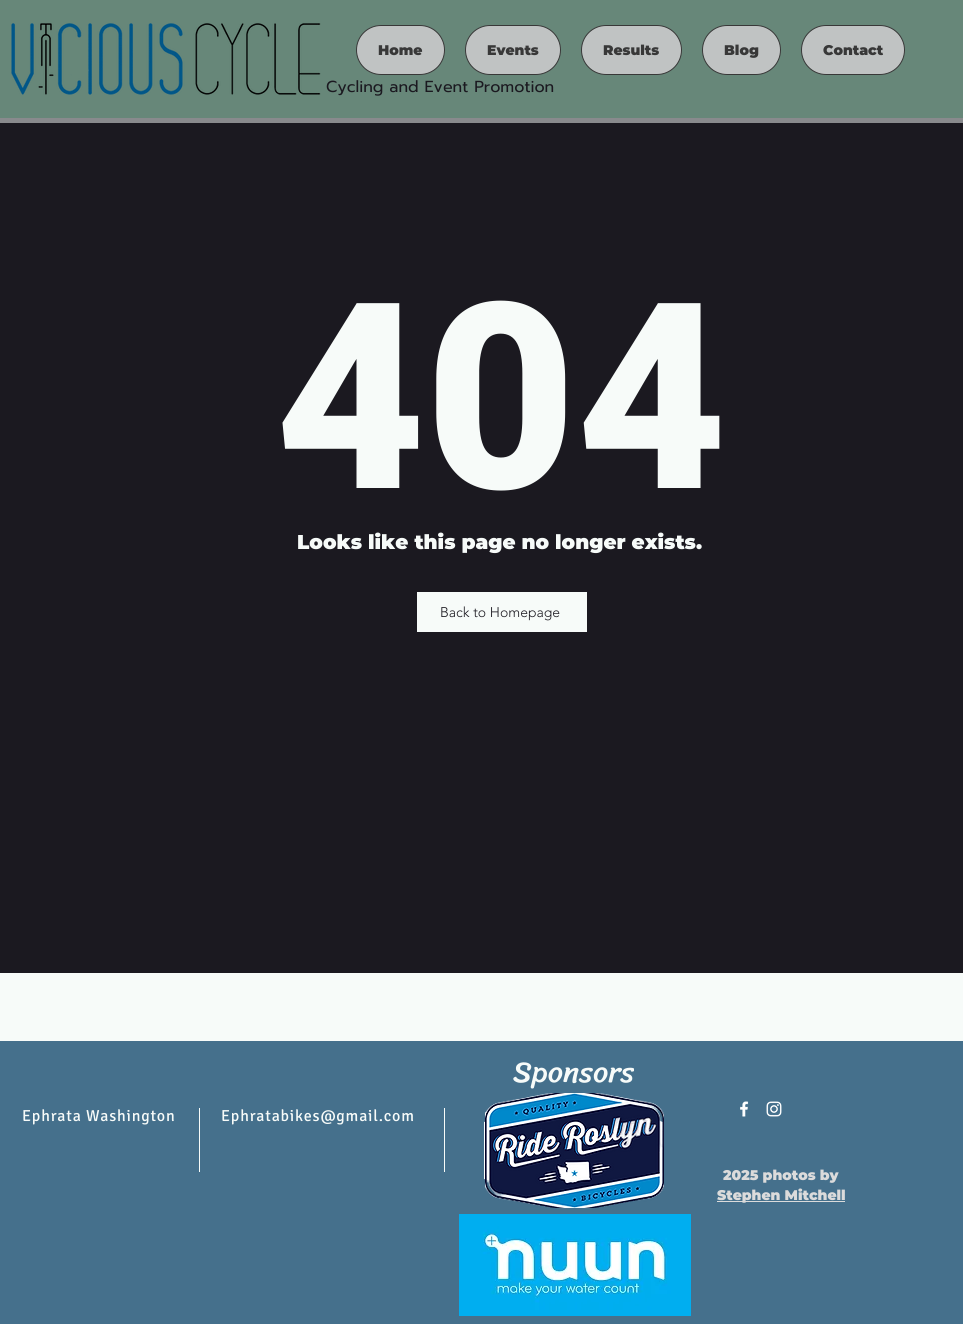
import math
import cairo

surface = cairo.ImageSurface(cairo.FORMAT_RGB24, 963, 1324)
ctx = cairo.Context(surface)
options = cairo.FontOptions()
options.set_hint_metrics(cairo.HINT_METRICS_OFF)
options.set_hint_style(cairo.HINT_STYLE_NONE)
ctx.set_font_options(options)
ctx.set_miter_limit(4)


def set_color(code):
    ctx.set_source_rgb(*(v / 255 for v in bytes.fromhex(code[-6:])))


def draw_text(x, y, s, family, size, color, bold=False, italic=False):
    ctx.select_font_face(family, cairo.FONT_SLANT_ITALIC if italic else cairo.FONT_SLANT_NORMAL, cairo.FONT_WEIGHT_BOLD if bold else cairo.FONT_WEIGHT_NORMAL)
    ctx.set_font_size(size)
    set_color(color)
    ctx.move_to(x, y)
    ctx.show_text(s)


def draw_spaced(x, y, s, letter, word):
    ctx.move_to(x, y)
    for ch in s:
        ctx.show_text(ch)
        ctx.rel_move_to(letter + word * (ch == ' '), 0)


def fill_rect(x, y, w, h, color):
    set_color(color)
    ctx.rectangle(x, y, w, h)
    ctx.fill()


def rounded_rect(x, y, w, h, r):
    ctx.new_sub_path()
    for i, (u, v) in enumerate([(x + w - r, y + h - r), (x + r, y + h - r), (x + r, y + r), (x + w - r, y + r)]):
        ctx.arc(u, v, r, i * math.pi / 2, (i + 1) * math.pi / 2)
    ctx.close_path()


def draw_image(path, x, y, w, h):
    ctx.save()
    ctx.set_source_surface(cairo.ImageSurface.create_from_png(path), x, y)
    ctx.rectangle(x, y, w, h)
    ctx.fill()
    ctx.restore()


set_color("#f7fbf9")
ctx.paint()
fill_rect(0, 0, 963, 118, "#678779")
set_color("#c0c3c3")
rounded_rect(356.5, 25.5, 88, 49, 24.5)
ctx.fill_preserve()
set_color("#383838")
ctx.set_line_width(1)
ctx.stroke()
draw_text(378, 55, "Home", "Montserrat Thin", 14, "#383838")
set_color("#c0c3c3")
rounded_rect(465.5, 25.5, 95, 49, 24.5)
ctx.fill_preserve()
set_color("#383838")
ctx.stroke()
draw_text(487, 55, "Events", "Montserrat Thin", 14, "#383838")
set_color("#c0c3c3")
rounded_rect(581.5, 25.5, 100, 49, 24.5)
ctx.fill_preserve()
set_color("#383838")
ctx.stroke()
draw_text(603, 55, "Results", "Montserrat Thin", 14, "#383838")
set_color("#c0c3c3")
rounded_rect(702.5, 25.5, 78, 49, 24.5)
ctx.fill_preserve()
set_color("#383838")
ctx.stroke()
draw_text(724, 55, "Blog", "Montserrat Thin", 14, "#383838")
set_color("#c0c3c3")
rounded_rect(801.5, 25.5, 103, 49, 24.5)
ctx.fill_preserve()
set_color("#383838")
ctx.stroke()
draw_text(823, 55, "Contact", "Montserrat Thin", 14, "#383838")
fill_rect(0, 118, 963, 5, "#898a8d")
draw_image("assets/img1.png", 11, 23, 310, 72)
draw_text(326, 92, "Cycling and Event Promotion", "Prompt", 16, "#1b1920")
fill_rect(0, 123, 963, 850, "#1b1920")
draw_text(275, 488, "404", "Roboto Black", 260, "#f7fbf9")
draw_text(297, 549, "Looks like this page no longer exists.", "Montserrat Thin", 20, "#f7fbf9")
fill_rect(417, 592, 170, 40, "#f7fbf9")
draw_text(440, 617, "Back to Homepage", "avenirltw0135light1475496 Light", 14, "#1b1920")
fill_rect(0, 1041, 963, 283, "#45708c")
draw_text(513, 1082, "Sponsors", "Sriracha", 30, "#f7fbf9")
ctx.select_font_face("Signika")
ctx.set_font_size(16)
draw_spaced(22, 1121, "Ephrata Washington", 0.8, 0)
fill_rect(199, 1108, 1, 64, "#f7fbf9")
draw_spaced(221, 1121, "Ephratabikes@gmail.com", 0.8, 0)
fill_rect(444, 1108, 1, 64, "#f7fbf9")
set_color("#ffffff")
ctx.new_path()
ctx.move_to(663, 1179)
ctx.line_to(573, 1208)
ctx.line_to(484, 1179)
ctx.line_to(484, 1122)
ctx.line_to(573, 1093)
ctx.line_to(663, 1122)
ctx.close_path()
ctx.fill()
draw_image("assets/img2.png", 485, 1093, 179, 115)
draw_image("assets/img3.png", 740, 1101, 9, 16)
draw_image("assets/img4.png", 766, 1101, 16, 16)
draw_text(723, 1180, "2025 photos by", "Montserrat Thin", 14, "#dbdbdb")
fill_rect(717, 1201, 128, 1, "#dbdbdb")
draw_text(717, 1200, "Stephen Mitchell", "Montserrat Thin", 14, "#dbdbdb")
draw_image("assets/img5.png", 459, 1214, 232, 102)
surface.write_to_png("output.png")
